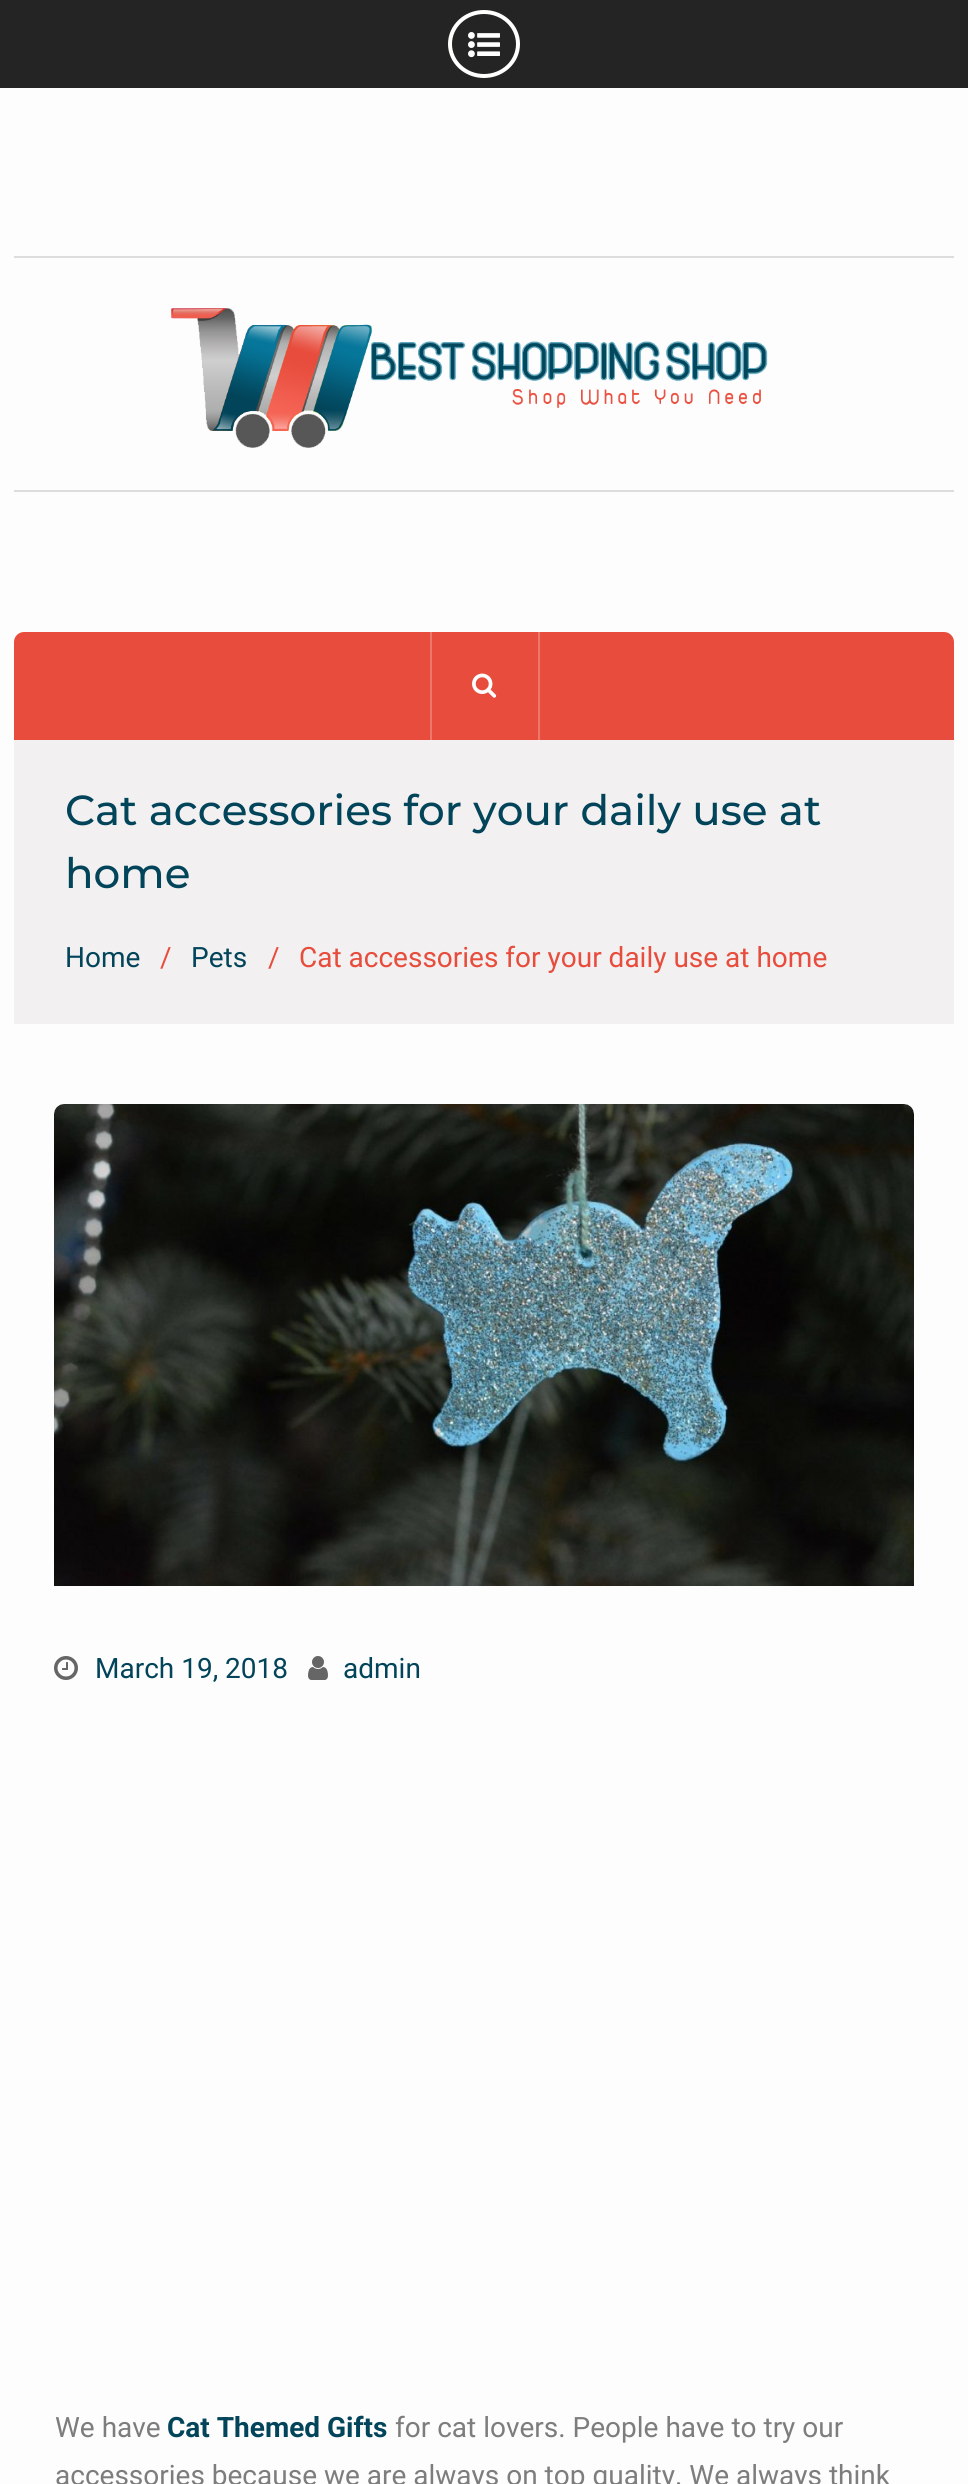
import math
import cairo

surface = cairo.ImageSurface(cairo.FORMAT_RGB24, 968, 2484)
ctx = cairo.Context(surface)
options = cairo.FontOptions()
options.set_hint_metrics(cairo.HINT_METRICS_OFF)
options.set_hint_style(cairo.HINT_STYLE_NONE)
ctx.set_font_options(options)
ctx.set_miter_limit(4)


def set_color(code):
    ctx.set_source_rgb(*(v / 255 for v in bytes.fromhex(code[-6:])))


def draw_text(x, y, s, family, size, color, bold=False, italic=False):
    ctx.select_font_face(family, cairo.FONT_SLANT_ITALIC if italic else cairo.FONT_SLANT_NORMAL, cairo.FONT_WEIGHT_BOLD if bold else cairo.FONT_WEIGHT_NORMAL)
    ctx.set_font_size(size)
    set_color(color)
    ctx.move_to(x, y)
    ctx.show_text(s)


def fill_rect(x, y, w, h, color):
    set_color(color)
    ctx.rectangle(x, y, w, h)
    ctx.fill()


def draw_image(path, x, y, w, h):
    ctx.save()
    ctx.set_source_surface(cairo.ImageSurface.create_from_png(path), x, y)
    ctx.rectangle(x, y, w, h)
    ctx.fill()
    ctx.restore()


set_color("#fdfdfd")
ctx.paint()
fill_rect(0, 0, 968, 88, "#242424")
ctx.new_path()
ctx.move_to(484, 12)
ctx.curve_to(503, 12, 518, 26.5, 518, 44)
ctx.curve_to(518, 61.5, 503, 76, 484, 76)
ctx.curve_to(465, 76, 450, 61.5, 450, 44)
ctx.curve_to(450, 26.5, 465, 12, 484, 12)
ctx.close_path()
set_color("#fffffe")
ctx.set_line_width(4)
ctx.stroke()
draw_image("assets/img1.png", 468, 32, 32, 26)
fill_rect(14, 256, 940, 2, "#dddddd")
fill_rect(14, 490, 940, 2, "#dddddd")
draw_image("assets/img2.png", 171, 308, 597, 140)
set_color("#e74c3c")
ctx.new_path()
ctx.move_to(24, 632)
ctx.line_to(944, 632)
ctx.curve_to(949.5, 632, 954, 636.5, 954, 642)
ctx.line_to(954, 740)
ctx.line_to(14, 740)
ctx.line_to(14, 642)
ctx.curve_to(14, 636.5, 18.5, 632, 24, 632)
ctx.close_path()
ctx.fill()
fill_rect(538, 632, 2, 108, "#ed776b")
fill_rect(430, 632, 2, 108, "#ed776b")
draw_image("assets/img3.png", 472, 673, 25, 25)
fill_rect(14, 740, 940, 284, "#f2f0f0")
draw_text(65, 825, "Cat accessories for your daily use at", "Montserrat Medium", 42, "#024459")
draw_text(65, 888, "home", "Montserrat Medium", 42, "#024459")
draw_text(65, 967, "Home", "Roboto", 28, "#024459")
draw_text(160, 967, "/", "Roboto", 28, "#e74c3c")
draw_text(191, 967, "Pets", "Roboto", 28, "#024459")
draw_text(268, 967, "/", "Roboto", 28, "#e74c3c")
draw_text(299, 967, "Cat accessories for your daily use at home", "Roboto", 28, "#e74c3c")
draw_image("assets/img4.png", 54, 1104, 860, 482)
draw_image("assets/img5.png", 54, 1656, 24, 24)
draw_text(95, 1678, "March 19, 2018", "Roboto", 28, "#024459")
draw_image("assets/img6.png", 308, 1656, 20, 24)
draw_text(343, 1678, "admin", "Roboto", 28, "#024459")
draw_text(55, 2437, "We have", "Roboto", 28, "#7d7d7d")
draw_text(167, 2437, "Cat Themed Gifts", "Roboto", 28, "#024459", bold=True)
draw_text(395, 2437, "for cat lovers. People have to try our", "Roboto", 28, "#7d7d7d")
draw_text(55, 2485, "accessories because we are always on top quality. We always think", "Roboto", 28, "#7d7d7d")
surface.write_to_png("output.png")
